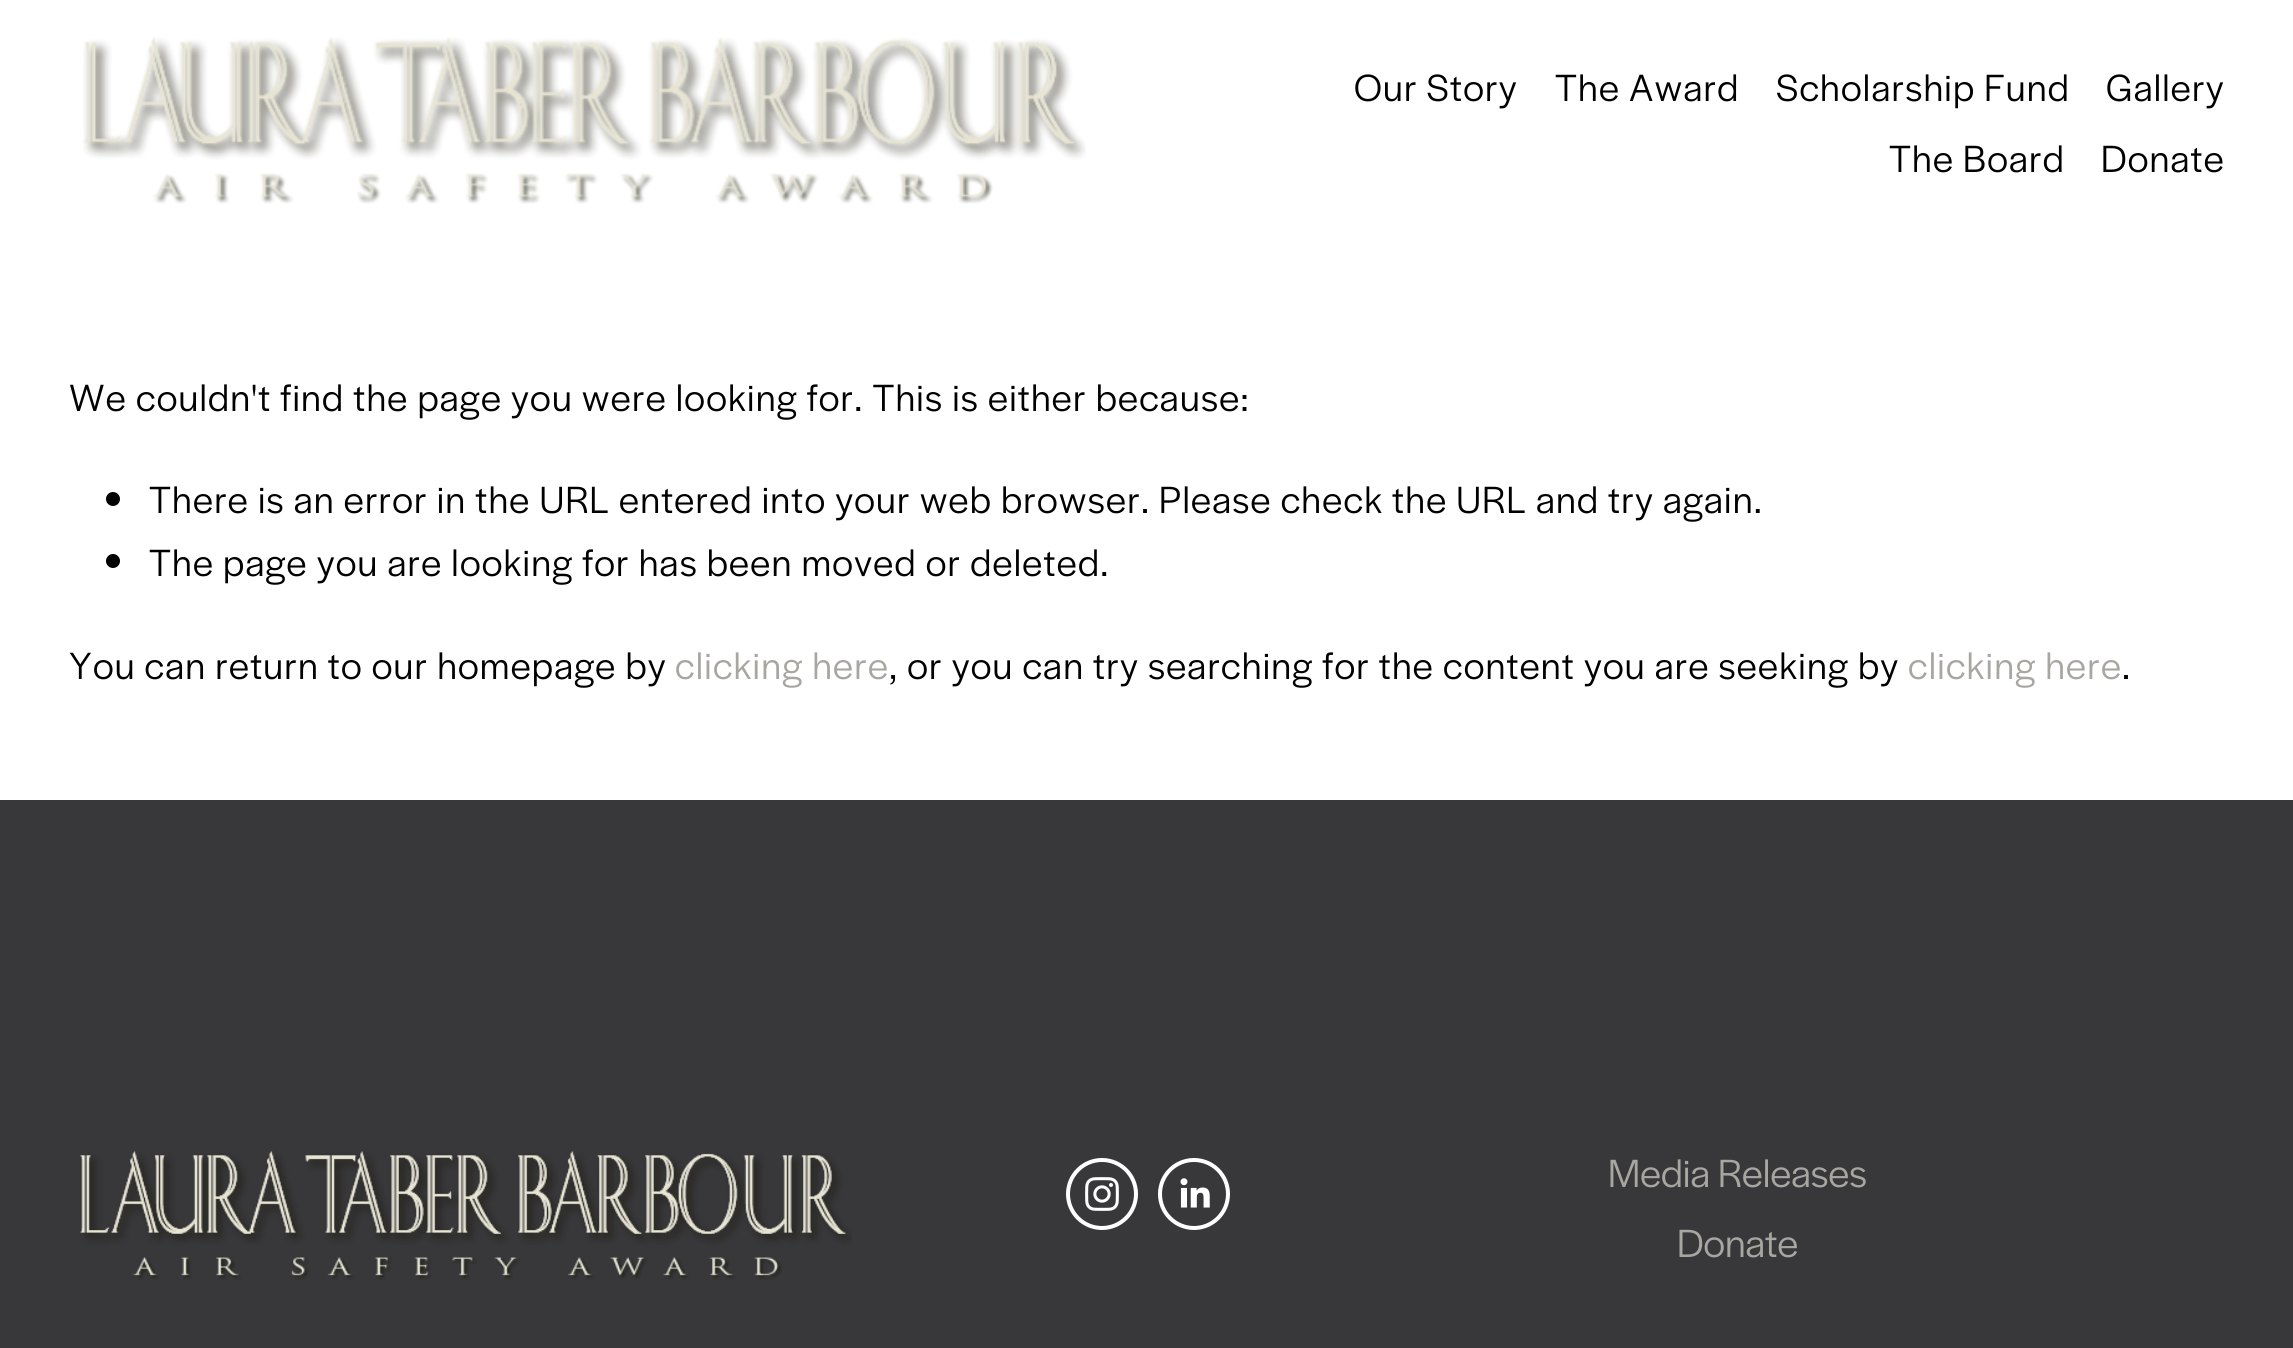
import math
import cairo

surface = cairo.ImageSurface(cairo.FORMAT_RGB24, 2293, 1348)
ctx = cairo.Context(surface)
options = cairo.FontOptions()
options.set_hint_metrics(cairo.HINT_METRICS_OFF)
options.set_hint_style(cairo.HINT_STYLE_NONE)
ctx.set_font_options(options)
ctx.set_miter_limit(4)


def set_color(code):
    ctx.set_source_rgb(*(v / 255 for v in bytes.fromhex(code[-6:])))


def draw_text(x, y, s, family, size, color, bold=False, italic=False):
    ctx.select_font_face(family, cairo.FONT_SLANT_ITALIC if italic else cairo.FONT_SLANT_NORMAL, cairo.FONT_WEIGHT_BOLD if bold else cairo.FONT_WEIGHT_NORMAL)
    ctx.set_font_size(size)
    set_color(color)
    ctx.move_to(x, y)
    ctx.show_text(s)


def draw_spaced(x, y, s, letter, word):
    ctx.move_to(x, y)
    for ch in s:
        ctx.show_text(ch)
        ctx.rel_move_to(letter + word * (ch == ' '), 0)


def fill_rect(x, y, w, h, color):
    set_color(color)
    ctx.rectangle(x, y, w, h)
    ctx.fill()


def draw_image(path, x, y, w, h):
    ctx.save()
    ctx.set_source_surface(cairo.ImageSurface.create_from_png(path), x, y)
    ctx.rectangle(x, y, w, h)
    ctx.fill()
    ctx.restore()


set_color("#ffffff")
ctx.paint()
draw_image("assets/img1.png", 83, 37, 1003, 167)
ctx.select_font_face("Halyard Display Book")
ctx.set_font_size(39.5)
set_color("#000000")
draw_spaced(1354, 101, "Our Story", 1.2, 0)
draw_spaced(1555, 101, "The Award", 1.2, 0)
draw_spaced(1776, 101, "Scholarship Fund", 1.2, 0)
draw_spaced(2106, 101, "Gallery", 1.2, 0)
draw_spaced(1889, 172, "The Board", 1.2, 0)
draw_spaced(2101, 172, "Donate", 1.2, 0)
draw_spaced(69, 411, "We couldn't find the page you were looking for. This is either because:", 1.2, 0)
ctx.new_path()
ctx.arc(113, 499, 7, 0, 2 * math.pi)
ctx.fill()
draw_spaced(149, 513, "There is an error in the URL entered into your web browser. Please check the URL and try again.", 1.2, 0)
ctx.new_path()
ctx.arc(113, 561, 7, 0, 2 * math.pi)
ctx.fill()
draw_spaced(149, 576, "The page you are looking for has been moved or deleted.", 1.2, 0)
draw_spaced(69, 679, "You can return to our homepage by", 1.2, 0)
set_color("#a8a6a1")
draw_spaced(675, 679, "clicking here", 1.2, 0)
set_color("#000000")
draw_spaced(889, 679, ", or you can try searching for the content you are seeking by", 1.2, 0)
set_color("#a8a6a1")
draw_spaced(1908, 679, "clicking here", 1.2, 0)
set_color("#000000")
draw_spaced(2122, 679, ".", 1.2, 0)
fill_rect(0, 800, 2293, 548, "#38383b")
draw_image("assets/img2.png", 80, 1151, 772, 129)
ctx.arc(1102, 1194, 34, 0, 2 * math.pi)
set_color("#ffffff")
ctx.set_line_width(4)
ctx.stroke()
draw_image("assets/img3.png", 1085, 1177, 34, 34)
ctx.arc(1194, 1194, 34, 0, 2 * math.pi)
ctx.stroke()
draw_image("assets/img4.png", 1180, 1178, 30, 30)
draw_text(1608, 1187, "Media Releases", "Halyard Display Book", 41, "#a8a6a1")
draw_text(1677, 1257, "Donate", "Halyard Display Book", 41, "#a8a6a1")
surface.write_to_png("output.png")
